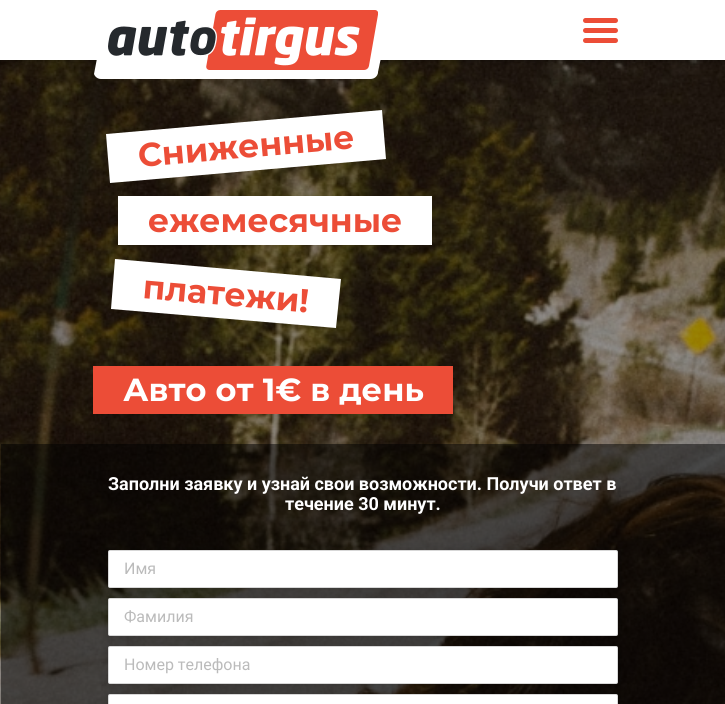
import math
import cairo

surface = cairo.ImageSurface(cairo.FORMAT_RGB24, 725, 704)
ctx = cairo.Context(surface)
options = cairo.FontOptions()
options.set_hint_metrics(cairo.HINT_METRICS_OFF)
options.set_hint_style(cairo.HINT_STYLE_NONE)
ctx.set_font_options(options)
ctx.set_miter_limit(4)


def set_color(code):
    ctx.set_source_rgb(*(v / 255 for v in bytes.fromhex(code[-6:])))


def draw_text(x, y, s, family, size, color, bold=False, italic=False):
    ctx.select_font_face(family, cairo.FONT_SLANT_ITALIC if italic else cairo.FONT_SLANT_NORMAL, cairo.FONT_WEIGHT_BOLD if bold else cairo.FONT_WEIGHT_NORMAL)
    ctx.set_font_size(size)
    set_color(color)
    ctx.move_to(x, y)
    ctx.show_text(s)


def fill_rect(x, y, w, h, color):
    set_color(color)
    ctx.rectangle(x, y, w, h)
    ctx.fill()


def rounded_rect(x, y, w, h, r):
    ctx.new_sub_path()
    for i, (u, v) in enumerate([(x + w - r, y + h - r), (x + r, y + h - r), (x + r, y + r), (x + w - r, y + r)]):
        ctx.arc(u, v, r, i * math.pi / 2, (i + 1) * math.pi / 2)
    ctx.close_path()


def draw_shadow(x, y, w, h, r, blur, alpha):
    ctx.push_group_with_content(cairo.CONTENT_ALPHA)
    ctx.set_operator(cairo.OPERATOR_SOURCE)
    for i in range(15, -16, -2):
        e = blur * i / 6
        if min(w, h) + 2 * e > 0:
            ctx.set_source_rgba(0, 0, 0, alpha * math.erfc((i - 1) / 8.5) / 2)
            rounded_rect(x - e, y - e, w + 2 * e, h + 2 * e, max(0, min(r + e + blur * .6, min(w, h) / 2 + e)))
            ctx.fill()
    ctx.mask(ctx.pop_group())


def draw_image(path, x, y, w, h):
    ctx.save()
    ctx.set_source_surface(cairo.ImageSurface.create_from_png(path), x, y)
    ctx.rectangle(x, y, w, h)
    ctx.fill()
    ctx.restore()


set_color("#ffffff")
ctx.paint()
draw_image("assets/img2.png", 0, 60, 725, 644)
ctx.save()
ctx.rectangle(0, 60, 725, 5)
ctx.clip()
set_color("#000000")
draw_shadow(0, 1, 725, 60, 0, 2.5, 0.3)
ctx.restore()
set_color("#ffffff")
ctx.new_path()
ctx.move_to(108, 1)
ctx.line_to(94, 74)
ctx.curve_to(95, 77, 98, 79, 101, 79)
ctx.line_to(370, 79)
ctx.curve_to(374, 79, 377, 77, 378, 73)
ctx.line_to(378, 7)
ctx.curve_to(377, 3, 374, 1, 370, 1)
ctx.close_path()
ctx.fill()
ctx.new_path()
ctx.move_to(116, 1)
ctx.line_to(385, 1)
ctx.curve_to(388, 1, 390, 3, 392, 5)
ctx.line_to(378, 72)
ctx.line_to(114, 79)
ctx.curve_to(111, 78, 108, 75, 108, 71)
ctx.line_to(108, 9)
ctx.curve_to(108, 5, 112, 1, 116, 1)
ctx.close_path()
ctx.fill()
draw_image("assets/img1.png", 108, 10, 270, 60)
set_color("#ec4d37")
rounded_rect(583, 28, 35, 5, 2.5)
ctx.fill()
rounded_rect(583, 18, 35, 5, 2.5)
ctx.fill()
rounded_rect(583, 38, 35, 5, 2.5)
ctx.fill()
set_color("#ffffff")
ctx.new_path()
ctx.move_to(106, 134)
ctx.line_to(382, 110)
ctx.line_to(386, 159)
ctx.line_to(110, 183)
ctx.close_path()
ctx.fill()
ctx.save()
ctx.translate(139, 167)
ctx.rotate(-5 * math.pi / 180)
draw_text(0, 0, "Сниженные", "Montserrat", 33, "#ec4d37", bold=True)
ctx.restore()
fill_rect(118, 196, 314, 49, "#ffffff")
draw_text(148, 232, "ежемесячные", "Montserrat", 33, "#ec4d37", bold=True)
set_color("#ffffff")
ctx.new_path()
ctx.move_to(115, 259)
ctx.line_to(341, 279)
ctx.line_to(336, 328)
ctx.line_to(111, 309)
ctx.close_path()
ctx.fill()
ctx.save()
ctx.translate(142, 298)
ctx.rotate(5 * math.pi / 180)
draw_text(0, 0, "платежи!", "Montserrat", 33, "#ec4d37", bold=True)
ctx.restore()
fill_rect(93, 366, 360, 48, "#ec4d37")
draw_text(123, 401, "Авто от 1€ в день", "Montserrat", 32, "#ffffff", bold=True)
ctx.set_source_rgba(0, 0, 0, 0.5)
ctx.rectangle(1, 444, 724, 260)
ctx.fill()
draw_text(108, 490, "Заполни заявку и узнай свои возможности. Получи ответ в", "Roboto", 18, "#ffffff", bold=True)
draw_text(285, 510, "течение 30 минут.", "Roboto", 18, "#ffffff", bold=True)
set_color("#000000")
draw_shadow(108, 551, 510, 38, 2, 5, 0.16)
set_color("#ffffff")
rounded_rect(108, 550, 510, 38, 2)
ctx.fill()
rounded_rect(108.5, 550.5, 509, 37, 1.5)
ctx.set_source_rgba(0, 0, 0, 0.16)
ctx.set_line_width(1)
ctx.stroke()
draw_text(124, 574, "Имя", "Roboto", 16, "#bbbbbb")
set_color("#000000")
draw_shadow(108, 599, 510, 38, 2, 5, 0.16)
set_color("#ffffff")
rounded_rect(108, 598, 510, 38, 2)
ctx.fill()
rounded_rect(108.5, 598.5, 509, 37, 1.5)
ctx.set_source_rgba(0, 0, 0, 0.16)
ctx.stroke()
draw_text(124, 622, "Фамилия", "Roboto", 16, "#bbbbbb")
set_color("#000000")
draw_shadow(108, 647, 510, 38, 2, 5, 0.16)
set_color("#ffffff")
rounded_rect(108, 646, 510, 38, 2)
ctx.fill()
rounded_rect(108.5, 646.5, 509, 37, 1.5)
ctx.set_source_rgba(0, 0, 0, 0.16)
ctx.stroke()
draw_text(124, 670, "Номер телефона", "Roboto", 16, "#bbbbbb")
set_color("#000000")
draw_shadow(108, 695, 510, 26, 2, 5, 0.16)
set_color("#ffffff")
rounded_rect(108, 694, 510, 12, 2)
ctx.fill()
rounded_rect(108.5, 694.5, 509, 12, 1.5)
ctx.set_source_rgba(0, 0, 0, 0.16)
ctx.stroke()
surface.write_to_png("output.png")
